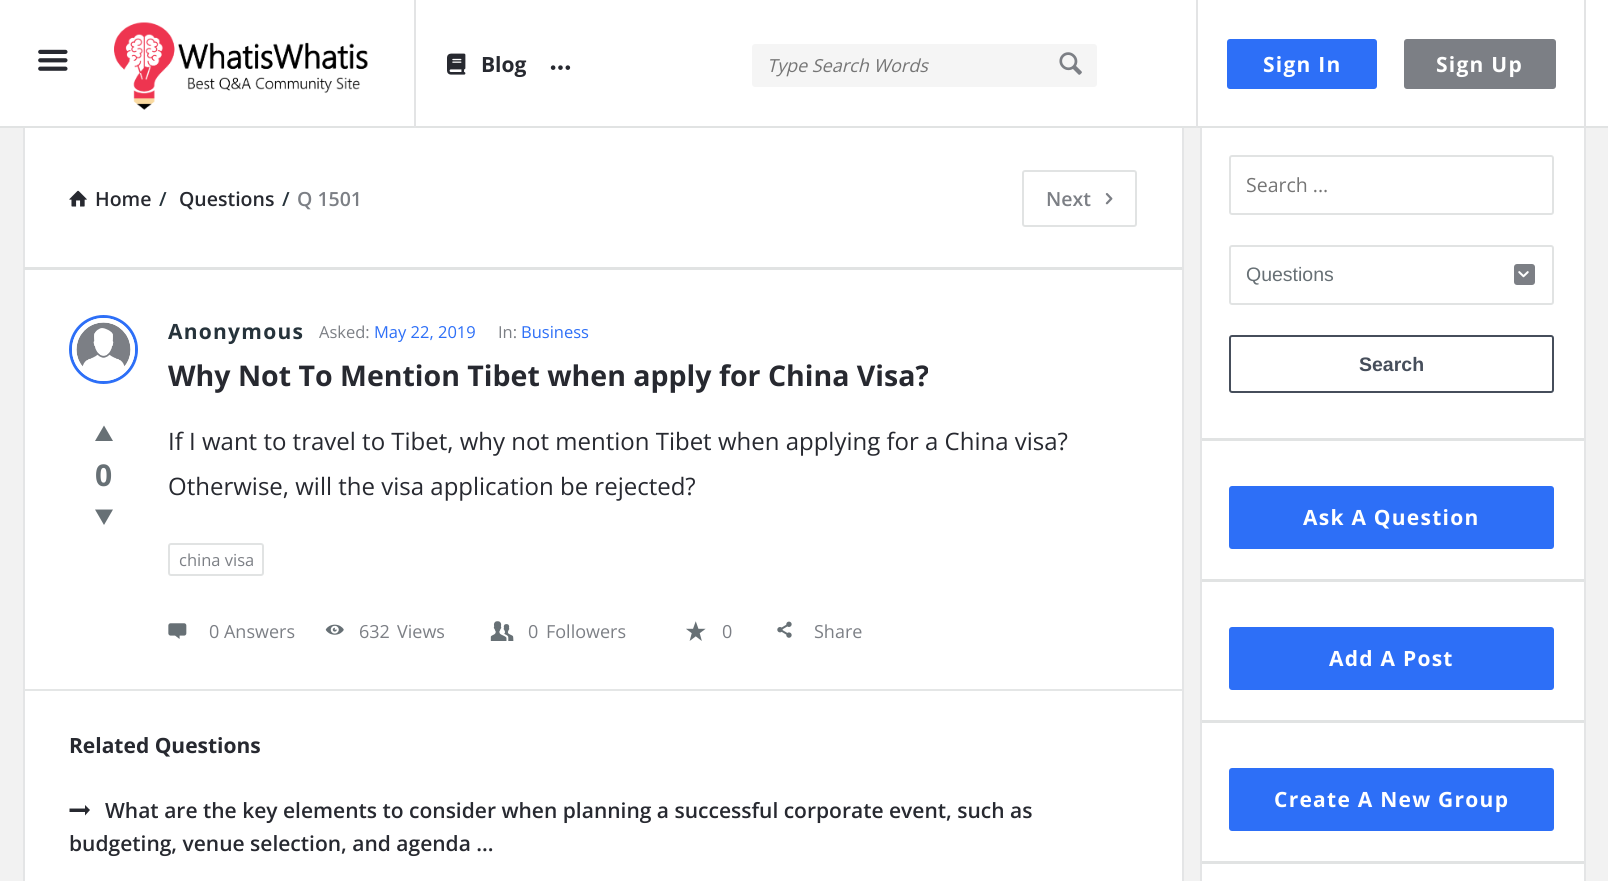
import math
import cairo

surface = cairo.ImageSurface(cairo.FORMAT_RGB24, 1608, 881)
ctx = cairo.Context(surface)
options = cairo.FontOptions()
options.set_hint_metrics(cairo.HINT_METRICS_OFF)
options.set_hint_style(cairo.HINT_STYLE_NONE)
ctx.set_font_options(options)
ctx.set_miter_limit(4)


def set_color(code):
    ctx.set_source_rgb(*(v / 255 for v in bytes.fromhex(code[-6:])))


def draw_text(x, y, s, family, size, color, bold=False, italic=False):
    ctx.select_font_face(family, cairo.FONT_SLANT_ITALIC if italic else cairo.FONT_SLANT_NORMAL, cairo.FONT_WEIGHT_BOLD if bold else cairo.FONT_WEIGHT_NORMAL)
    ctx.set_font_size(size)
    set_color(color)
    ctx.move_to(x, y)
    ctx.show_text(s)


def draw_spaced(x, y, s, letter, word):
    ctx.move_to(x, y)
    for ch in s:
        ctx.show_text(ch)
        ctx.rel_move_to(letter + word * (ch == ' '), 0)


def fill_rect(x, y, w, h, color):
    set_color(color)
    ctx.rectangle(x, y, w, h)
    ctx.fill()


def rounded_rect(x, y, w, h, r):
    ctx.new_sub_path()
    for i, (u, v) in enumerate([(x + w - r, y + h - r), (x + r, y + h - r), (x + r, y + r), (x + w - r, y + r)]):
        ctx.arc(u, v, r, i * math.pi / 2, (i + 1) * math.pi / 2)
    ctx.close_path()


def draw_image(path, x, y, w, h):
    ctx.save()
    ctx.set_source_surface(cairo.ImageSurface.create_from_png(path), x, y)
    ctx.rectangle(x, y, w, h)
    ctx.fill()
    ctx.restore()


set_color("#f2f2f2")
ctx.paint()
fill_rect(0, 0, 1608, 126, "#ffffff")
fill_rect(0, 126, 1608, 2, "#e1e3e3")
draw_image("assets/img1.png", 38, 49, 30, 22)
fill_rect(414, 0, 2, 128, "#e3e4e5")
draw_image("assets/img2.png", 114, 22, 254, 88)
draw_image("assets/img3.png", 447, 53, 19, 22)
draw_text(481, 72, "Blog", "Open Sans", 21, "#272930", bold=True)
draw_image("assets/img4.png", 550, 65, 21, 5)
set_color("#f5f5f5")
rounded_rect(752, 44, 345, 43, 3)
ctx.fill()
draw_text(767, 72, "Type Search Words", "Open Sans", 18, "#757575", italic=True)
draw_image("assets/img5.png", 1059, 52, 23, 23)
fill_rect(1584, 0, 2, 128, "#e3e4e5")
fill_rect(1196, 0, 2, 128, "#e3e4e5")
set_color("#2d6ff7")
rounded_rect(1227, 39, 150, 50, 3)
ctx.fill()
ctx.select_font_face("Open Sans", cairo.FONT_SLANT_NORMAL, cairo.FONT_WEIGHT_BOLD)
ctx.set_font_size(21)
set_color("#ffffff")
draw_spaced(1263, 72, "Sign In", 1.25, 0)
set_color("#7c7f85")
rounded_rect(1404, 39, 152, 50, 3)
ctx.fill()
set_color("#ffffff")
draw_spaced(1436, 72, "Sign Up", 1.25, 0)
fill_rect(25, 128, 1157, 753, "#ffffff")
fill_rect(1182, 128, 2, 753, "#e4e5e6")
fill_rect(23, 128, 2, 753, "#e4e5e6")
fill_rect(24, 267, 1158, 3, "#e1e3e3")
draw_image("assets/img6.png", 69, 190, 18, 17)
draw_text(95, 206, "Home", "Open Sans SemiBold", 19.5, "#272930")
draw_text(159, 206, "/", "Open Sans SemiBold", 19.5, "#26333b")
draw_text(179, 206, "Questions", "Open Sans SemiBold", 19.5, "#272930")
draw_text(282, 206, "/", "Open Sans SemiBold", 19.5, "#26333b")
draw_text(297, 206, "Q 1501", "Open Sans SemiBold", 19.5, "#7c7f85")
rounded_rect(1023, 171, 113, 55, 2)
set_color("#e1e3e3")
ctx.stroke()
draw_text(1046, 206, "Next", "Open Sans SemiBold", 19.5, "#7c7f85")
draw_image("assets/img7.png", 1105, 193, 8, 12)
ctx.arc(103.5, 349.5, 33, 0, 2 * math.pi)
set_color("#2d6ff7")
ctx.set_line_width(3)
ctx.stroke()
ctx.arc(103.5, 349.5, 29, 0, 2 * math.pi)
set_color("#ffffff")
ctx.set_line_width(5)
ctx.stroke()
draw_image("assets/img8.png", 76, 322, 55, 45)
ctx.select_font_face("Open Sans", cairo.FONT_SLANT_NORMAL, cairo.FONT_WEIGHT_BOLD)
ctx.set_font_size(21)
set_color("#26333b")
draw_spaced(168, 339, "Anonymous", 1.25, 0)
draw_text(319, 338, "Asked:", "Open Sans", 16.5, "#7c7f85")
draw_text(374, 338, "May 22, 2019", "Open Sans", 16.5, "#2d6ff7")
draw_text(498, 338, "In:", "Open Sans", 16.5, "#7c7f85")
draw_text(521, 338, "Business", "Open Sans", 16.5, "#2d6ff7")
draw_text(168, 386, "Why Not To Mention Tibet when apply for China Visa?", "Open Sans", 28.5, "#272930", bold=True)
set_color("#677075")
ctx.new_path()
ctx.move_to(95, 441)
ctx.line_to(104, 425.5)
ctx.line_to(113, 441)
ctx.close_path()
ctx.fill()
draw_text(95, 486, "0", "Open Sans", 30, "#677075", bold=True)
ctx.new_path()
ctx.move_to(113, 509.5)
ctx.line_to(104, 525)
ctx.line_to(95, 509.5)
ctx.close_path()
ctx.fill()
draw_text(168, 450, "If I want to travel to Tibet, why not mention Tibet when applying for a China visa?", "Open Sans", 24, "#272930")
draw_text(168, 495, "Otherwise, will the visa application be rejected?", "Open Sans", 24, "#272930")
rounded_rect(169, 544, 94, 31, 2)
set_color("#e1e3e3")
ctx.set_line_width(2)
ctx.stroke()
draw_text(179, 566, "china visa", "Open Sans", 16.5, "#7c7f85")
draw_image("assets/img9.png", 168, 623, 19, 16)
draw_text(209, 638, "0 Answers", "Open Sans", 18, "#7c7f85")
draw_image("assets/img10.png", 325, 624, 19, 11)
draw_text(359, 638, "632", "Open Sans", 18, "#7c7f85")
draw_text(397, 638, "Views", "Open Sans", 18, "#7c7f85")
draw_image("assets/img11.png", 490, 621, 24, 20)
draw_text(528, 638, "0", "Open Sans", 18, "#7c7f85")
draw_text(546, 638, "Followers", "Open Sans", 18, "#7c7f85")
draw_image("assets/img12.png", 686, 621, 20, 20)
draw_text(722, 638, "0", "Open Sans", 18, "#7c7f85")
draw_image("assets/img13.png", 777, 621, 15, 17)
draw_text(814, 638, "Share", "Open Sans", 18, "#7c7f85")
fill_rect(24, 689, 1158, 2, "#e4e6e6")
draw_text(69, 753, "Related Questions", "Open Sans", 21, "#272930", bold=True)
ctx.new_path()
ctx.move_to(85, 815.5)
ctx.line_to(85, 812)
ctx.line_to(69.5, 812)
ctx.line_to(69.5, 808.5)
ctx.line_to(85, 808.5)
ctx.line_to(85, 805)
ctx.line_to(90, 810)
ctx.close_path()
ctx.fill()
draw_text(105, 818, "What are the key elements to consider when planning a successful corporate event, such as", "Open Sans SemiBold", 21, "#272930")
draw_text(69, 851, "budgeting, venue selection, and agenda ...", "Open Sans SemiBold", 21, "#272930")
fill_rect(1202, 128, 382, 753, "#ffffff")
fill_rect(1584, 128, 2, 753, "#e4e5e6")
fill_rect(1200, 128, 2, 753, "#e4e5e6")
fill_rect(1202, 438, 382, 3, "#e1e3e3")
rounded_rect(1230, 156, 323, 58, 2)
ctx.stroke()
draw_text(1246, 192, "Search ...", "Open Sans", 19.5, "#757575")
rounded_rect(1230, 246, 323, 58, 2)
set_color("#e1e3e3")
ctx.stroke()
draw_text(1246, 281, "Questions", "Liberation Sans", 19.5, "#677075")
set_color("#7c7f85")
rounded_rect(1514, 264, 21, 21, 3)
ctx.fill()
draw_image("assets/img14.png", 1518, 271, 11, 7)
rounded_rect(1230, 336, 323, 56, 2)
set_color("#464e5b")
ctx.stroke()
draw_text(1359, 371, "Search", "Liberation Sans", 19.5, "#464e5b", bold=True)
fill_rect(1202, 579, 382, 3, "#e1e3e3")
set_color("#2d6ff7")
rounded_rect(1229, 486, 325, 63, 3)
ctx.fill()
ctx.select_font_face("Open Sans", cairo.FONT_SLANT_NORMAL, cairo.FONT_WEIGHT_BOLD)
ctx.set_font_size(21)
set_color("#ffffff")
draw_spaced(1303, 525, "Ask A Question", 1.25, 0)
fill_rect(1202, 720, 382, 3, "#e1e3e3")
set_color("#2d6ff7")
rounded_rect(1229, 627, 325, 63, 3)
ctx.fill()
set_color("#ffffff")
draw_spaced(1329, 666, "Add A Post", 1.25, 0)
fill_rect(1202, 861, 382, 3, "#e1e3e3")
set_color("#2d6ff7")
rounded_rect(1229, 768, 325, 63, 3)
ctx.fill()
set_color("#ffffff")
draw_spaced(1274, 807, "Create A New Group", 1.25, 0)
surface.write_to_png("output.png")
